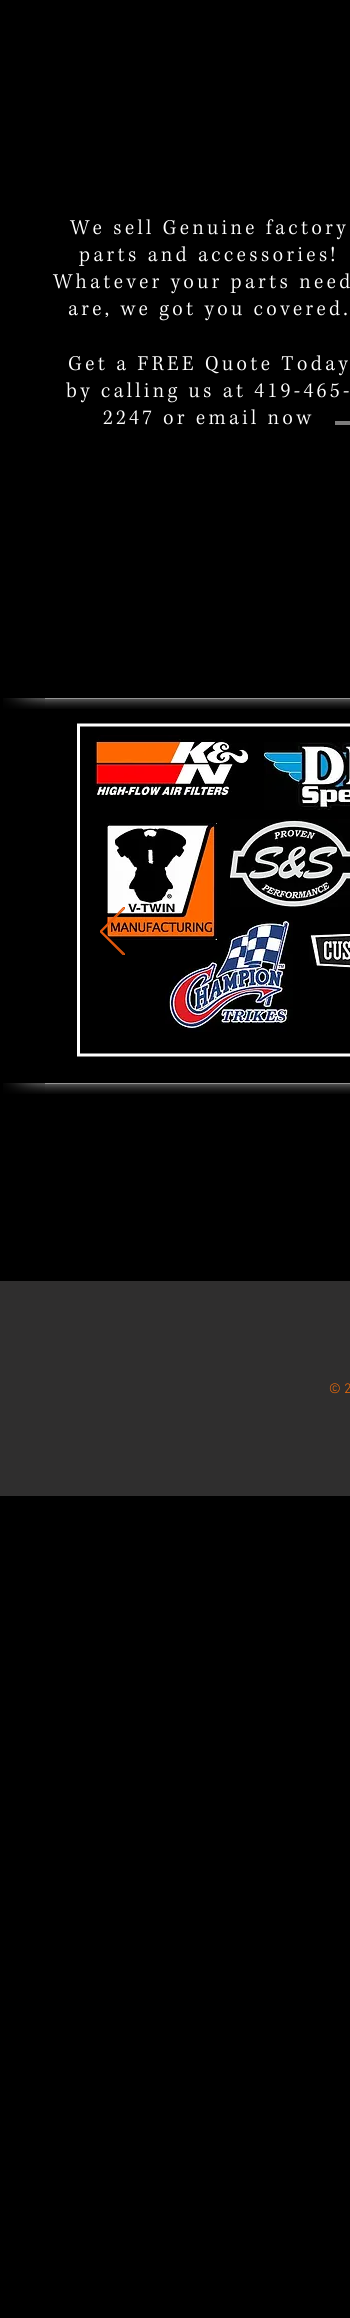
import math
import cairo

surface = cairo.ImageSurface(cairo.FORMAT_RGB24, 350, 2318)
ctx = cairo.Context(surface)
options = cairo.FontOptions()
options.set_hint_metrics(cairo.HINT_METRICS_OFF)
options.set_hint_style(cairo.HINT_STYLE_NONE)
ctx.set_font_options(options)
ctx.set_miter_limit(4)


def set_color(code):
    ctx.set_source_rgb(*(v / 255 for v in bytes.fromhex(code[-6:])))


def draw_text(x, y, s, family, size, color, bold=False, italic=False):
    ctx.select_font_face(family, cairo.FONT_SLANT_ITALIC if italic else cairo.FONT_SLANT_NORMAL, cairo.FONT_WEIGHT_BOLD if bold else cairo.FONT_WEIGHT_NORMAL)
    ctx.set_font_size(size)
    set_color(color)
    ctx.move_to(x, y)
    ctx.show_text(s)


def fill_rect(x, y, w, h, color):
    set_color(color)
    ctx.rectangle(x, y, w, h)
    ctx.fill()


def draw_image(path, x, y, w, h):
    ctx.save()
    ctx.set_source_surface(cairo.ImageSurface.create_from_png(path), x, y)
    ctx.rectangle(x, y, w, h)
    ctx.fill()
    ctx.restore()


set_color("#000000")
ctx.paint()
draw_image("assets/img1.png", 69, 219, 277, 21)
draw_image("assets/img2.png", 79, 246, 255, 20)
draw_image("assets/img3.png", 52, 273, 298, 21)
draw_image("assets/img4.png", 68, 300, 279, 21)
draw_image("assets/img5.png", 69, 355, 279, 21)
draw_image("assets/img6.png", 66, 382, 283, 21)
draw_image("assets/img7.png", 103, 410, 49, 15)
draw_image("assets/img8.png", 163, 409, 149, 16)
fill_rect(335, 421, 15, 4, "#7d7c7c")
draw_image("assets/img9.png", 45, 698, 305, 11)
draw_image("assets/img10.png", 3, 698, 42, 11)
ctx.new_path()
ctx.move_to(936.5, 725)
ctx.line_to(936.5, 1055)
ctx.line_to(78.5, 1055)
ctx.line_to(78.5, 725)
ctx.close_path()
set_color("#ffffff")
ctx.set_line_width(3)
ctx.stroke()
draw_image("assets/img11.png", 92, 735, 156, 60)
draw_image("assets/img12.png", 264, 742, 86, 68)
draw_image("assets/img15.png", 165, 920, 128, 112)
draw_image("assets/img13.png", 107, 823, 110, 117)
draw_image("assets/img14.png", 230, 819, 120, 88)
draw_image("assets/img16.png", 309, 934, 41, 36)
draw_image("assets/img9.png", 45, 1083, 305, 11)
draw_image("assets/img10.png", 3, 1083, 42, 11)
ctx.save()
ctx.rectangle(100, 907, 25, 48)
ctx.clip()
ctx.new_path()
ctx.move_to(124, 955.5)
ctx.line_to(100, 931.5)
ctx.line_to(124, 907)
ctx.line_to(125, 908)
ctx.line_to(101.5, 931.5)
ctx.line_to(125, 954.5)
ctx.close_path()
set_color("#e85a0d")
ctx.set_line_width(1.2)
ctx.stroke()
ctx.restore()
fill_rect(0, 1281, 350, 215, "#2f2e2e")
draw_text(329, 1393, "© 2", "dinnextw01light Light", 14, "#f96e07")
surface.write_to_png("output.png")
